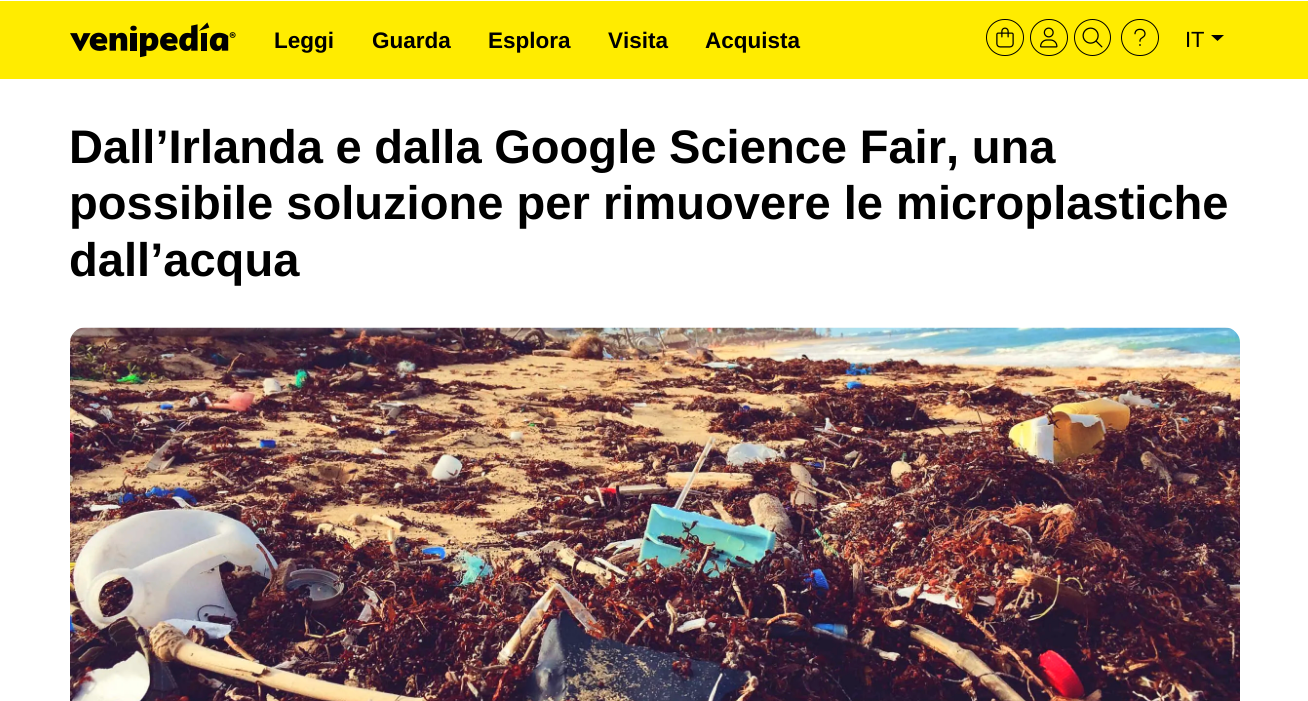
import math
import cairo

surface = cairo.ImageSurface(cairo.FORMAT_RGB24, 1308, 701)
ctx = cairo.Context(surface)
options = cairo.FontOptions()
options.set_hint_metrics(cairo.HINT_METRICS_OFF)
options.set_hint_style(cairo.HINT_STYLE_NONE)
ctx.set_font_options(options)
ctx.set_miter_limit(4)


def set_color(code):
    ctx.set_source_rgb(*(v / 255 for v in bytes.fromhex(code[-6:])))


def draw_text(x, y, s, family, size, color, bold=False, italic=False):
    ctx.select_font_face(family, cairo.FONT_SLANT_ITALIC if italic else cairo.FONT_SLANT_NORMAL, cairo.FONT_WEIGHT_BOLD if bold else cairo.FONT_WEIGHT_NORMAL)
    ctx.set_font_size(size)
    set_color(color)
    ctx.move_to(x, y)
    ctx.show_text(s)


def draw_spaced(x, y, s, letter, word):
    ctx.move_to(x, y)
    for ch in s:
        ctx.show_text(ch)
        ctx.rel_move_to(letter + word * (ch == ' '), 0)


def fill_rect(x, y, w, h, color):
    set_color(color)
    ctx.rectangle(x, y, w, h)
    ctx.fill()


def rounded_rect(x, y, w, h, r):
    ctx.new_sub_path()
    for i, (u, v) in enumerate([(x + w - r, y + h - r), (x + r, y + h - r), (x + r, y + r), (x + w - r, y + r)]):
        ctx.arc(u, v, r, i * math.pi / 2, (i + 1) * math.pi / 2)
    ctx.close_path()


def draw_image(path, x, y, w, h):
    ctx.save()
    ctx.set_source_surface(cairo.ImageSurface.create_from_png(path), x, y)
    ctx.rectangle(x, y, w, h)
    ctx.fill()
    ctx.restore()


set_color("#ffffff")
ctx.paint()
fill_rect(0, 1, 1308, 78, "#ffec00")
draw_image("assets/img1.png", 70, 22, 166, 36)
draw_text(274, 48, "Leggi", "Liberation Sans", 22.5, "#000000", bold=True)
draw_text(372, 48, "Guarda", "Liberation Sans", 22.5, "#000000", bold=True)
draw_text(488, 48, "Esplora", "Liberation Sans", 22.5, "#000000", bold=True)
draw_text(608, 48, "Visita", "Liberation Sans", 22.5, "#000000", bold=True)
draw_text(705, 48, "Acquista", "Liberation Sans", 22.5, "#000000", bold=True)
rounded_rect(986.5, 19.5, 37, 36, 18)
ctx.set_line_width(1)
ctx.stroke()
draw_image("assets/img2.png", 996, 27, 18, 21)
rounded_rect(1030.5, 19.5, 37, 36, 18)
ctx.stroke()
draw_image("assets/img3.png", 1040, 27, 18, 21)
ctx.arc(1092.5, 37.5, 18, 0, 2 * math.pi)
ctx.stroke()
draw_image("assets/img4.png", 1082, 27, 21, 21)
rounded_rect(1121.5, 19.5, 37, 36, 18)
ctx.stroke()
draw_image("assets/img5.png", 1134, 28, 12, 18)
draw_text(1185, 47, "IT", "Liberation Sans", 22, "#000000")
ctx.new_path()
ctx.move_to(1211, 35)
ctx.line_to(1224, 35)
ctx.line_to(1217.5, 41)
ctx.close_path()
ctx.fill()
ctx.select_font_face("Liberation Sans", cairo.FONT_SLANT_NORMAL, cairo.FONT_WEIGHT_BOLD)
ctx.set_font_size(47.1)
draw_spaced(69, 163, "Dall’Irlanda e dalla Google Science Fair, una", 0, -0.5)
draw_text(69, 219, "possibile soluzione per rimuovere le microplastiche", "Liberation Sans", 47.1, "#000000", bold=True)
draw_text(69, 276, "dall’acqua", "Liberation Sans", 47.1, "#000000", bold=True)
draw_image("assets/img6.png", 70, 327, 1170, 374)
surface.write_to_png("output.png")
